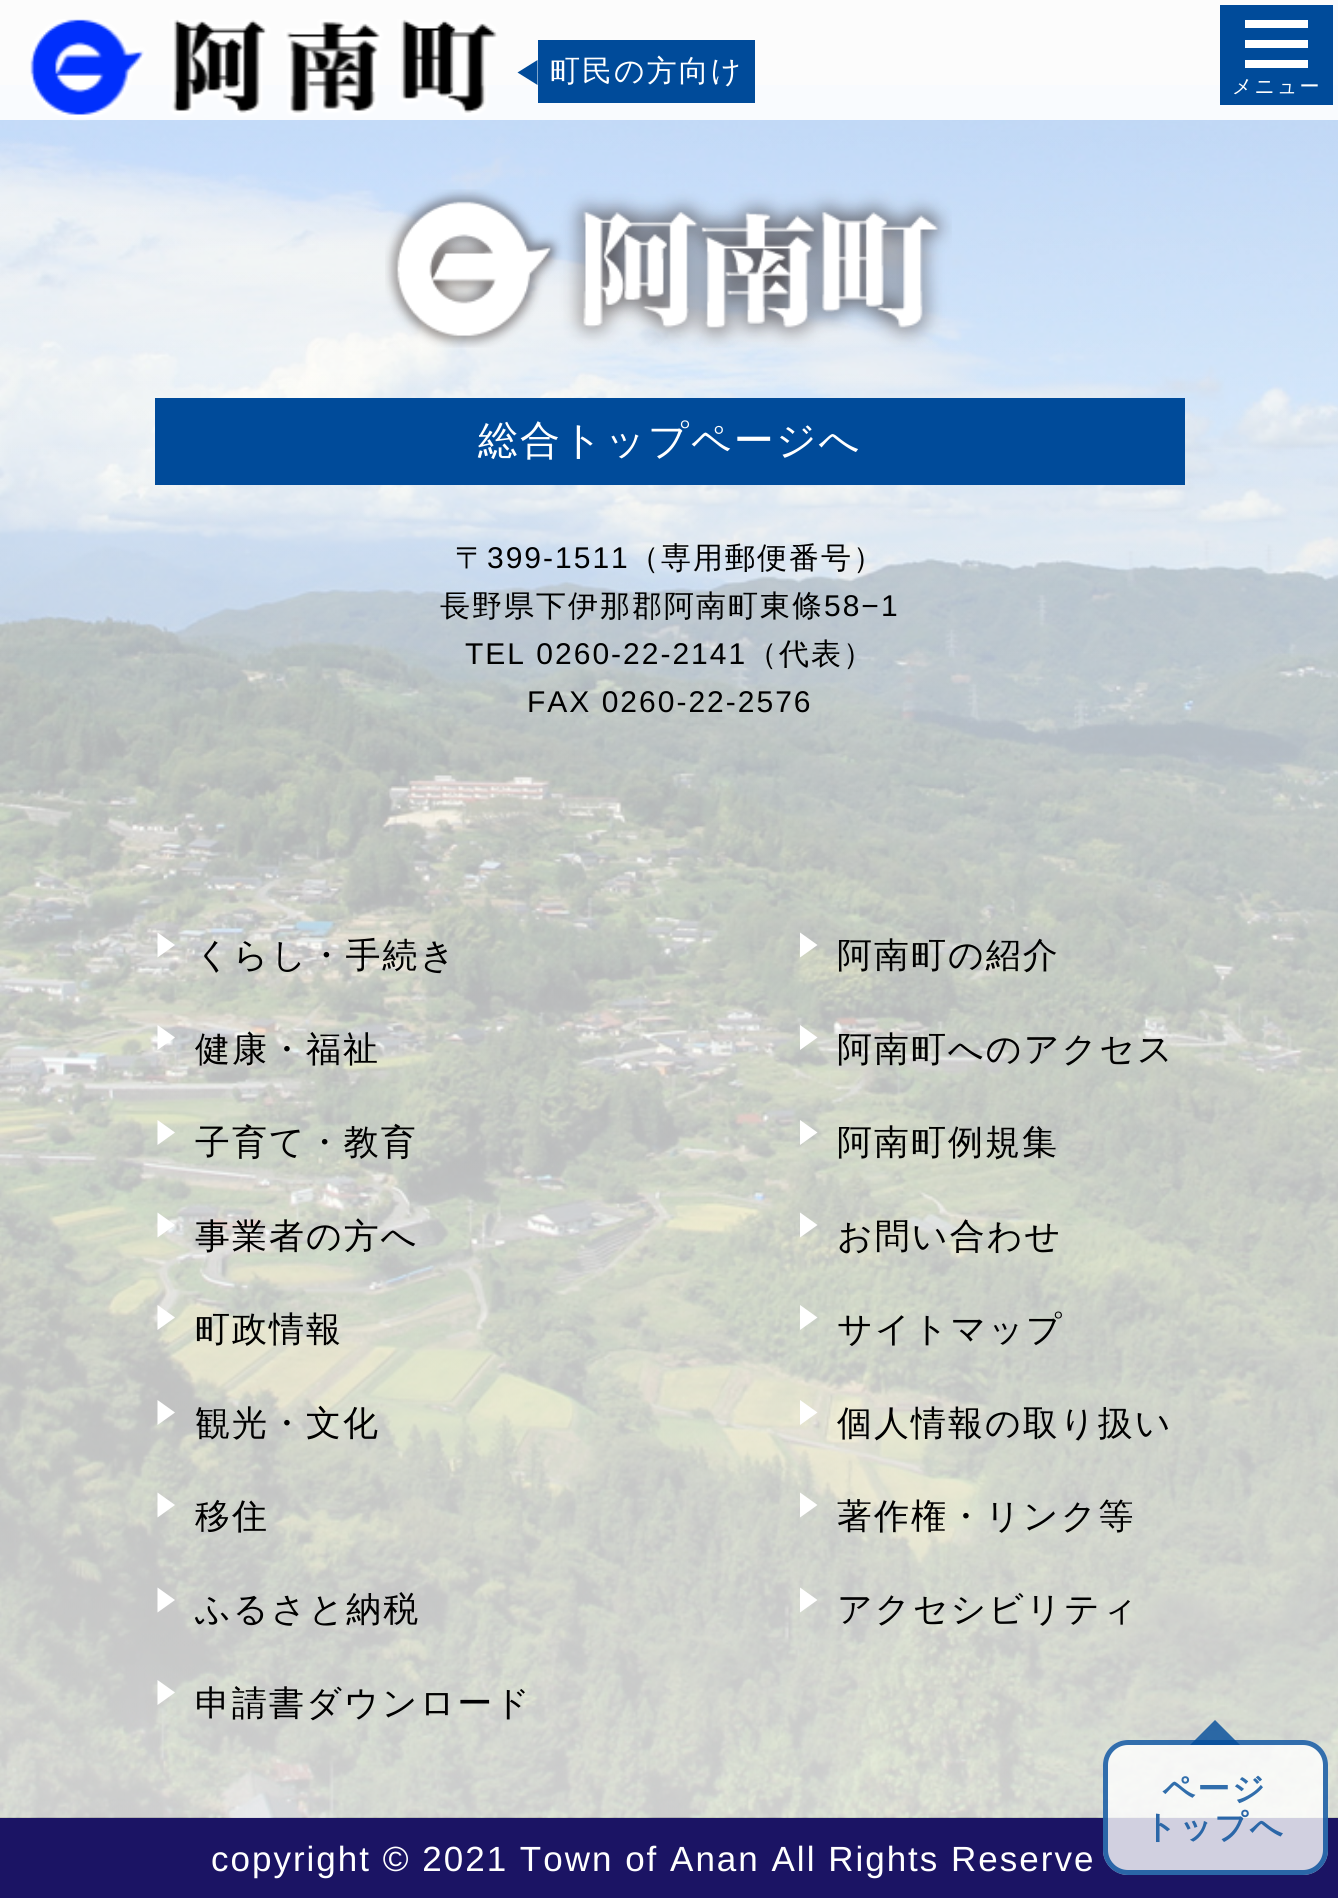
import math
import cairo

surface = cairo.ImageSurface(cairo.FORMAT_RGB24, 1338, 1898)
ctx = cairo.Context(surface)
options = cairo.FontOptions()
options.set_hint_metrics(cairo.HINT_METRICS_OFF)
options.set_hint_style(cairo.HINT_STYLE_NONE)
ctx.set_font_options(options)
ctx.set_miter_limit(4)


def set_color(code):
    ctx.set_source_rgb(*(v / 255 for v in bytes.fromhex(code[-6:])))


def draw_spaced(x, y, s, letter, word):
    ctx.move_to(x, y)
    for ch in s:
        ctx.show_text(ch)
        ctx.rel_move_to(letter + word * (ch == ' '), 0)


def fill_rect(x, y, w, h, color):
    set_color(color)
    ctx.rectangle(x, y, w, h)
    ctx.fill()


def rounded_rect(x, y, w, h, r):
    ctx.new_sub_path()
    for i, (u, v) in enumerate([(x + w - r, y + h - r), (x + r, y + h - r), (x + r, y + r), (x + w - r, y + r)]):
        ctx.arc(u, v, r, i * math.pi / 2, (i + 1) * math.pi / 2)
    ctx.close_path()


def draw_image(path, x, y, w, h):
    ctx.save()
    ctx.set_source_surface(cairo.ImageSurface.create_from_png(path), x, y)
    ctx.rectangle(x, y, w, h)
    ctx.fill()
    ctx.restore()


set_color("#ffffff")
ctx.paint()
fill_rect(0, 0, 1338, 85, "#dfdfdf")
draw_image("assets/img2.png", 0, 85, 1338, 1733)
ctx.set_source_rgba(1, 1, 1, 0.9)
ctx.rectangle(0, 0, 1338, 120)
ctx.fill()
draw_image("assets/img1.png", 30, 19, 468, 102)
fill_rect(538, 40, 217, 63, "#004b9a")
ctx.new_path()
ctx.move_to(537.5, 60)
ctx.line_to(537.5, 85)
ctx.line_to(517.5, 72.5)
ctx.close_path()
ctx.fill()
ctx.select_font_face("WenQuanYi Zen Hei Medium")
ctx.set_font_size(30)
set_color("#ffffff")
draw_spaced(550, 81, "町民の方向け", 2, 0)
fill_rect(1220, 5, 113, 100, "#004b9a")
fill_rect(1245, 40, 63, 8, "#ffffff")
fill_rect(1245, 20, 63, 8, "#ffffff")
fill_rect(1245, 60, 63, 8, "#ffffff")
ctx.set_font_size(20)
draw_spaced(1232, 93, "メニュー", 2, 0)
draw_image("assets/img3.png", 385, 189, 567, 159)
fill_rect(155, 398, 1030, 87, "#004b9a")
ctx.set_font_size(40)
set_color("#ffffff")
draw_spaced(478, 454, "総合トップページへ", 2, 0)
ctx.set_font_size(30)
set_color("#000000")
draw_spaced(455, 568, "〒", 2, 0)
ctx.select_font_face("Liberation Sans")
draw_spaced(487, 568, "399-1511", 2, 0)
ctx.select_font_face("WenQuanYi Zen Hei Medium")
draw_spaced(629, 568, "（専用郵便番号）", 2, 0)
draw_spaced(440, 616, "長野県下伊那郡阿南町東條", 2, 0)
ctx.select_font_face("Liberation Sans")
draw_spaced(824, 616, "58−1", 2, 0)
draw_spaced(465, 664, "TEL 0260-22-2141", 2, 0)
ctx.select_font_face("WenQuanYi Zen Hei Medium")
draw_spaced(747, 664, "（代表）", 2, 0)
ctx.select_font_face("Liberation Sans")
draw_spaced(527, 712, "FAX 0260-22-2576", 2, 0)
set_color("#ffffff")
ctx.new_path()
ctx.move_to(157.5, 957.5)
ctx.line_to(157.5, 932.5)
ctx.line_to(175, 945)
ctx.close_path()
ctx.fill()
ctx.select_font_face("WenQuanYi Zen Hei Medium")
ctx.set_font_size(35)
set_color("#000000")
draw_spaced(195, 967, "くらし・手続き", 2, 0)
set_color("#ffffff")
ctx.new_path()
ctx.move_to(157.5, 1050)
ctx.line_to(157.5, 1025)
ctx.line_to(175, 1037.5)
ctx.close_path()
ctx.fill()
set_color("#000000")
draw_spaced(195, 1061, "健康・福祉", 2, 0)
set_color("#ffffff")
ctx.new_path()
ctx.move_to(157.5, 1145)
ctx.line_to(157.5, 1120)
ctx.line_to(175, 1132.5)
ctx.close_path()
ctx.fill()
set_color("#000000")
draw_spaced(195, 1154, "子育て・教育", 2, 0)
set_color("#ffffff")
ctx.new_path()
ctx.move_to(157.5, 1237.5)
ctx.line_to(157.5, 1212.5)
ctx.line_to(175, 1225)
ctx.close_path()
ctx.fill()
set_color("#000000")
draw_spaced(195, 1248, "事業者の方へ", 2, 0)
set_color("#ffffff")
ctx.new_path()
ctx.move_to(157.5, 1330)
ctx.line_to(157.5, 1305)
ctx.line_to(175, 1317.5)
ctx.close_path()
ctx.fill()
set_color("#000000")
draw_spaced(195, 1341, "町政情報", 2, 0)
set_color("#ffffff")
ctx.new_path()
ctx.move_to(157.5, 1425)
ctx.line_to(157.5, 1400)
ctx.line_to(175, 1412.5)
ctx.close_path()
ctx.fill()
set_color("#000000")
draw_spaced(195, 1435, "観光・文化", 2, 0)
set_color("#ffffff")
ctx.new_path()
ctx.move_to(157.5, 1517.5)
ctx.line_to(157.5, 1492.5)
ctx.line_to(175, 1505)
ctx.close_path()
ctx.fill()
set_color("#000000")
draw_spaced(195, 1528, "移住", 2, 0)
set_color("#ffffff")
ctx.new_path()
ctx.move_to(157.5, 1612.5)
ctx.line_to(157.5, 1587.5)
ctx.line_to(175, 1600)
ctx.close_path()
ctx.fill()
set_color("#000000")
draw_spaced(195, 1621, "ふるさと納税", 2, 0)
set_color("#ffffff")
ctx.new_path()
ctx.move_to(157.5, 1705)
ctx.line_to(157.5, 1680)
ctx.line_to(175, 1692.5)
ctx.close_path()
ctx.fill()
set_color("#000000")
draw_spaced(195, 1715, "申請書ダウンロード", 2, 0)
set_color("#ffffff")
ctx.new_path()
ctx.move_to(800, 957.5)
ctx.line_to(800, 932.5)
ctx.line_to(817.5, 945)
ctx.close_path()
ctx.fill()
set_color("#000000")
draw_spaced(837, 967, "阿南町の紹介", 2, 0)
set_color("#ffffff")
ctx.new_path()
ctx.move_to(800, 1050)
ctx.line_to(800, 1025)
ctx.line_to(817.5, 1037.5)
ctx.close_path()
ctx.fill()
set_color("#000000")
draw_spaced(837, 1061, "阿南町へのアクセス", 2, 0)
set_color("#ffffff")
ctx.new_path()
ctx.move_to(800, 1145)
ctx.line_to(800, 1120)
ctx.line_to(817.5, 1132.5)
ctx.close_path()
ctx.fill()
set_color("#000000")
draw_spaced(837, 1154, "阿南町例規集", 2, 0)
set_color("#ffffff")
ctx.new_path()
ctx.move_to(800, 1237.5)
ctx.line_to(800, 1212.5)
ctx.line_to(817.5, 1225)
ctx.close_path()
ctx.fill()
set_color("#000000")
draw_spaced(837, 1248, "お問い合わせ", 2, 0)
set_color("#ffffff")
ctx.new_path()
ctx.move_to(800, 1330)
ctx.line_to(800, 1305)
ctx.line_to(817.5, 1317.5)
ctx.close_path()
ctx.fill()
set_color("#000000")
draw_spaced(837, 1341, "サイトマップ", 2, 0)
set_color("#ffffff")
ctx.new_path()
ctx.move_to(800, 1425)
ctx.line_to(800, 1400)
ctx.line_to(817.5, 1412.5)
ctx.close_path()
ctx.fill()
set_color("#000000")
draw_spaced(837, 1435, "個人情報の取り扱い", 2, 0)
set_color("#ffffff")
ctx.new_path()
ctx.move_to(800, 1517.5)
ctx.line_to(800, 1492.5)
ctx.line_to(817.5, 1505)
ctx.close_path()
ctx.fill()
set_color("#000000")
draw_spaced(837, 1528, "著作権・リンク等", 2, 0)
set_color("#ffffff")
ctx.new_path()
ctx.move_to(800, 1612.5)
ctx.line_to(800, 1587.5)
ctx.line_to(817.5, 1600)
ctx.close_path()
ctx.fill()
set_color("#000000")
draw_spaced(837, 1621, "アクセシビリティ", 2, 0)
fill_rect(0, 1818, 1338, 80, "#1b1464")
ctx.select_font_face("Liberation Sans")
set_color("#ffffff")
draw_spaced(211, 1871, "copyright © 2021 Town of Anan All Rights Reserve", 2, 0)
ctx.set_source_rgba(1, 1, 1, 0.8)
rounded_rect(1103, 1740, 225, 135, 25)
ctx.fill()
rounded_rect(1105.5, 1742.5, 220, 130, 22.5)
ctx.set_source_rgba(0, 0.294, 0.604, 0.8)
ctx.set_line_width(5)
ctx.stroke()
ctx.new_path()
ctx.move_to(1240, 1745)
ctx.line_to(1190, 1745)
ctx.line_to(1215, 1720)
ctx.close_path()
ctx.fill()
ctx.select_font_face("WenQuanYi Zen Hei", cairo.FONT_SLANT_NORMAL, cairo.FONT_WEIGHT_BOLD)
ctx.set_font_size(32.5)
set_color("#316eac")
draw_spaced(1162, 1800, "ページ", 2, 0)
set_color("#2b67a8")
draw_spaced(1144, 1838, "トップへ", 2, 0)
surface.write_to_png("output.png")
